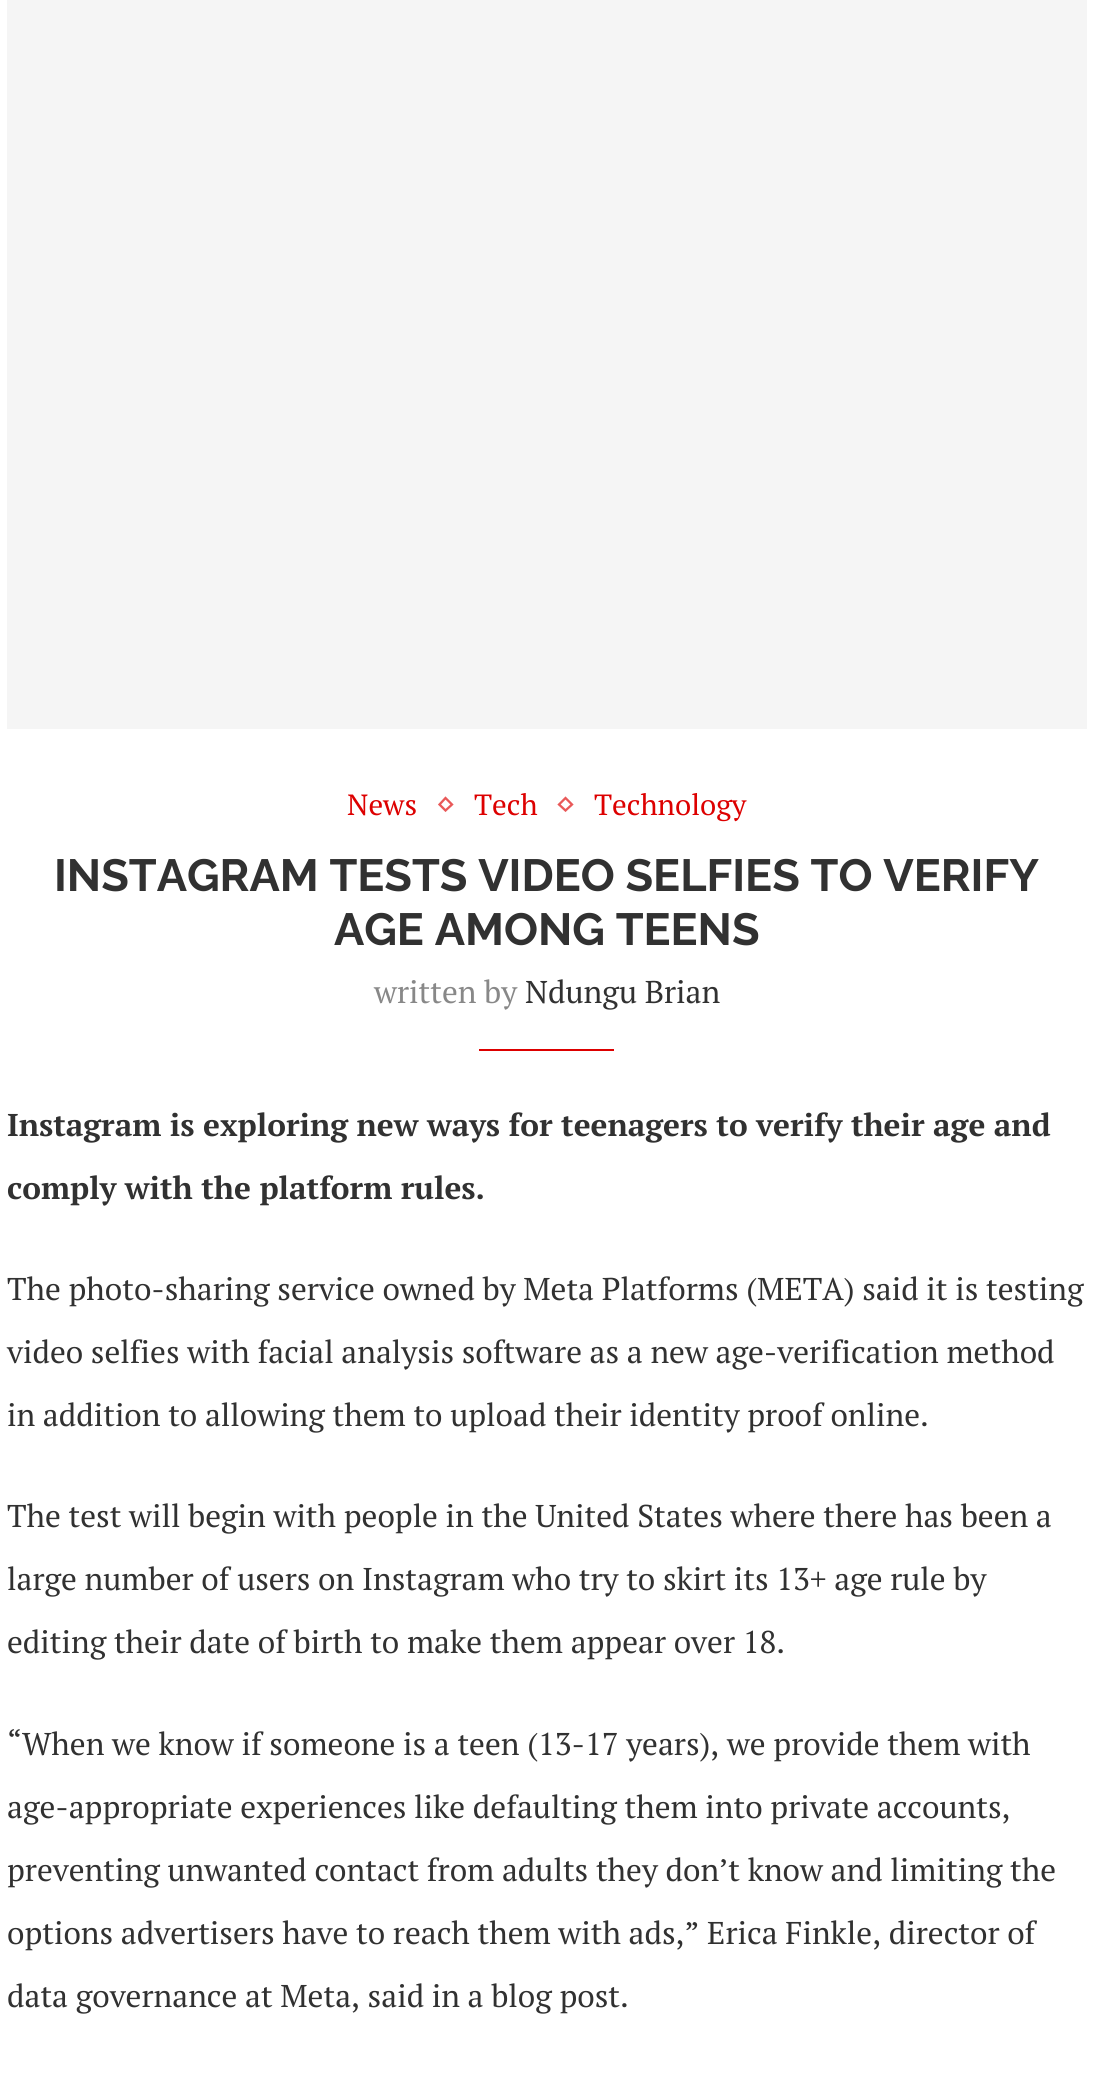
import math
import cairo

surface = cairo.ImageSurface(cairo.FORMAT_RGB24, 1093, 2098)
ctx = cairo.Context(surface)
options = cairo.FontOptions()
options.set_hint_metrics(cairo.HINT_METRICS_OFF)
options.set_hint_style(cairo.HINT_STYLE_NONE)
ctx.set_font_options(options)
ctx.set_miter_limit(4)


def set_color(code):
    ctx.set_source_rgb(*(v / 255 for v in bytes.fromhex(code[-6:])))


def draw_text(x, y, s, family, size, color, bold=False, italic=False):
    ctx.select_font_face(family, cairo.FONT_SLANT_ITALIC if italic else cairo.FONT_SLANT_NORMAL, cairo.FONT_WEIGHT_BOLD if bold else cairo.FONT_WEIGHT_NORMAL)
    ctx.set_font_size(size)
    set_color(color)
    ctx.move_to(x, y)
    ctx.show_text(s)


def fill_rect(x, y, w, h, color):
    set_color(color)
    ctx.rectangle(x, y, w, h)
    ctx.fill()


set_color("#ffffff")
ctx.paint()
fill_rect(7, 0, 1080, 729, "#f5f5f5")
draw_text(347, 815, "News", "PT Serif", 29.25, "#dd0000")
ctx.new_path()
ctx.move_to(445.5, 798)
ctx.line_to(452, 804.5)
ctx.line_to(445.5, 810.5)
ctx.line_to(439.5, 804.5)
ctx.close_path()
set_color("#e95959")
ctx.set_line_width(2.3)
ctx.stroke()
draw_text(474, 815, "Tech", "PT Serif", 29.25, "#dd0000")
ctx.new_path()
ctx.move_to(565.5, 798)
ctx.line_to(572, 804.5)
ctx.line_to(565.5, 810.5)
ctx.line_to(559, 804.5)
ctx.close_path()
set_color("#e95959")
ctx.stroke()
draw_text(594, 815, "Technology", "PT Serif", 29.25, "#dd0000")
draw_text(54, 891, "INSTAGRAM TESTS VIDEO SELFIES TO VERIFY", "Raleway", 45, "#313131", bold=True)
draw_text(334, 945, "AGE AMONG TEENS", "Raleway", 45, "#313131", bold=True)
draw_text(374, 1003, "written by", "PT Serif", 31.5, "#888888")
draw_text(525, 1003, "Ndungu Brian", "PT Serif", 31.5, "#313131")
fill_rect(479, 1049, 135, 2, "#dd0000")
draw_text(7, 1136, "Instagram is exploring new ways for teenagers to verify their age and", "PT Serif", 31.5, "#313131", bold=True)
draw_text(7, 1199, "comply with the platform rules.", "PT Serif", 31.5, "#313131", bold=True)
draw_text(7, 1300, "The photo-sharing service owned by Meta Platforms (META) said it is testing", "PT Serif", 31.5, "#313131")
draw_text(7, 1363, "video selfies with facial analysis software as a new age-verification method", "PT Serif", 31.5, "#313131")
draw_text(7, 1426, "in addition to allowing them to upload their identity proof online.", "PT Serif", 31.5, "#313131")
draw_text(7, 1527, "The test will begin with people in the United States where there has been a", "PT Serif", 31.5, "#313131")
draw_text(7, 1590, "large number of users on Instagram who try to skirt its 13+ age rule by", "PT Serif", 31.5, "#313131")
draw_text(7, 1653, "editing their date of birth to make them appear over 18.", "PT Serif", 31.5, "#313131")
draw_text(7, 1755, "“When we know if someone is a teen (13-17 years), we provide them with", "PT Serif", 31.5, "#313131")
draw_text(7, 1818, "age-appropriate experiences like defaulting them into private accounts,", "PT Serif", 31.5, "#313131")
draw_text(7, 1881, "preventing unwanted contact from adults they don’t know and limiting the", "PT Serif", 31.5, "#313131")
draw_text(7, 1944, "options advertisers have to reach them with ads,” Erica Finkle, director of", "PT Serif", 31.5, "#313131")
draw_text(7, 2007, "data governance at Meta, said in a blog post.", "PT Serif", 31.5, "#313131")
surface.write_to_png("output.png")
